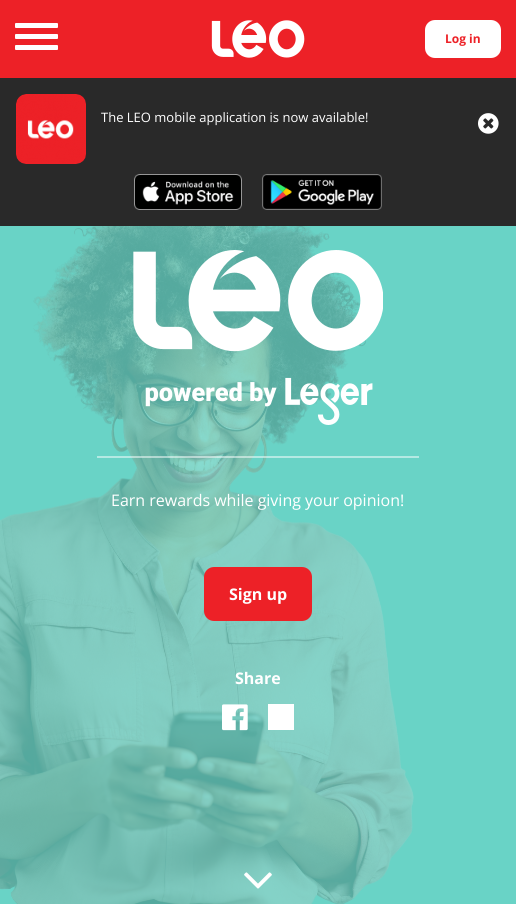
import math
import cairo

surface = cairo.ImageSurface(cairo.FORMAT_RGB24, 516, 904)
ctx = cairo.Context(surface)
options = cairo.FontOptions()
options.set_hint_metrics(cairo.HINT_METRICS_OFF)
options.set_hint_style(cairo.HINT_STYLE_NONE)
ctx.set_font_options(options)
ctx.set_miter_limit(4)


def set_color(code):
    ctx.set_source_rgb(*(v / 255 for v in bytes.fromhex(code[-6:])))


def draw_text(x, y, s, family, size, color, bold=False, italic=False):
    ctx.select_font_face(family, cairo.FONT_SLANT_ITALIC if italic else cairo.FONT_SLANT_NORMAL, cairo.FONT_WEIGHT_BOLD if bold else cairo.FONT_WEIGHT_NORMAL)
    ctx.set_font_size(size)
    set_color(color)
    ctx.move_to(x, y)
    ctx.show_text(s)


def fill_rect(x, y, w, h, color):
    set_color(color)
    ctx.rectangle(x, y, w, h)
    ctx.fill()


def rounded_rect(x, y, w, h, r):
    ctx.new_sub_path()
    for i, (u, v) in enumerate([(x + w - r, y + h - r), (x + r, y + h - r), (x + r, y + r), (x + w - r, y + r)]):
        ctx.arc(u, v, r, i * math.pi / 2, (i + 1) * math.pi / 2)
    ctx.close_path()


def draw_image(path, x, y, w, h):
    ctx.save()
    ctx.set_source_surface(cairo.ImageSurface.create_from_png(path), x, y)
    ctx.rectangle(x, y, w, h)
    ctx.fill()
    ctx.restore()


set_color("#69d3c6")
ctx.paint()
fill_rect(0, 0, 516, 78, "#ed2127")
set_color("#ffffff")
rounded_rect(15, 23, 43, 5, 1)
ctx.fill()
rounded_rect(15, 34, 43, 5, 1)
ctx.fill()
rounded_rect(15, 45, 43, 5, 1)
ctx.fill()
draw_image("assets/img1.png", 211, 20, 94, 38)
rounded_rect(425, 20, 76, 38, 10)
ctx.fill()
draw_text(445, 43, "Log in", "Open Sans", 12, "#ed2127", bold=True)
fill_rect(0, 78, 516, 148, "#292929")
draw_image("assets/img2.png", 16, 94, 70, 70)
draw_text(101, 122, "The LEO mobile application is now available!", "Open Sans", 13, "#ffffff")
draw_image("assets/img3.png", 478, 113, 21, 21)
draw_image("assets/img4.png", 134, 174, 108, 36)
draw_image("assets/img5.png", 262, 174, 120, 36)
draw_image("assets/img6.png", 0, 226, 414, 678)
draw_image("assets/img7.png", 133, 250, 250, 175)
ctx.set_source_rgba(1, 1, 1, 0.5)
ctx.rectangle(97, 456, 322, 2)
ctx.fill()
draw_text(111, 506, "Earn rewards while giving your opinion!", "Open Sans", 16, "#ffffff")
set_color("#ed2127")
rounded_rect(204, 567, 108, 54, 10)
ctx.fill()
draw_text(229, 600, "Sign up", "Open Sans", 16, "#ffffff", bold=True)
draw_text(235, 684, "Share", "Open Sans", 16, "#ffffff", bold=True)
draw_image("assets/img8.png", 222, 704, 26, 27)
fill_rect(268, 704, 26, 26, "#ffffff")
draw_image("assets/img9.png", 244, 872, 28, 17)
surface.write_to_png("output.png")
